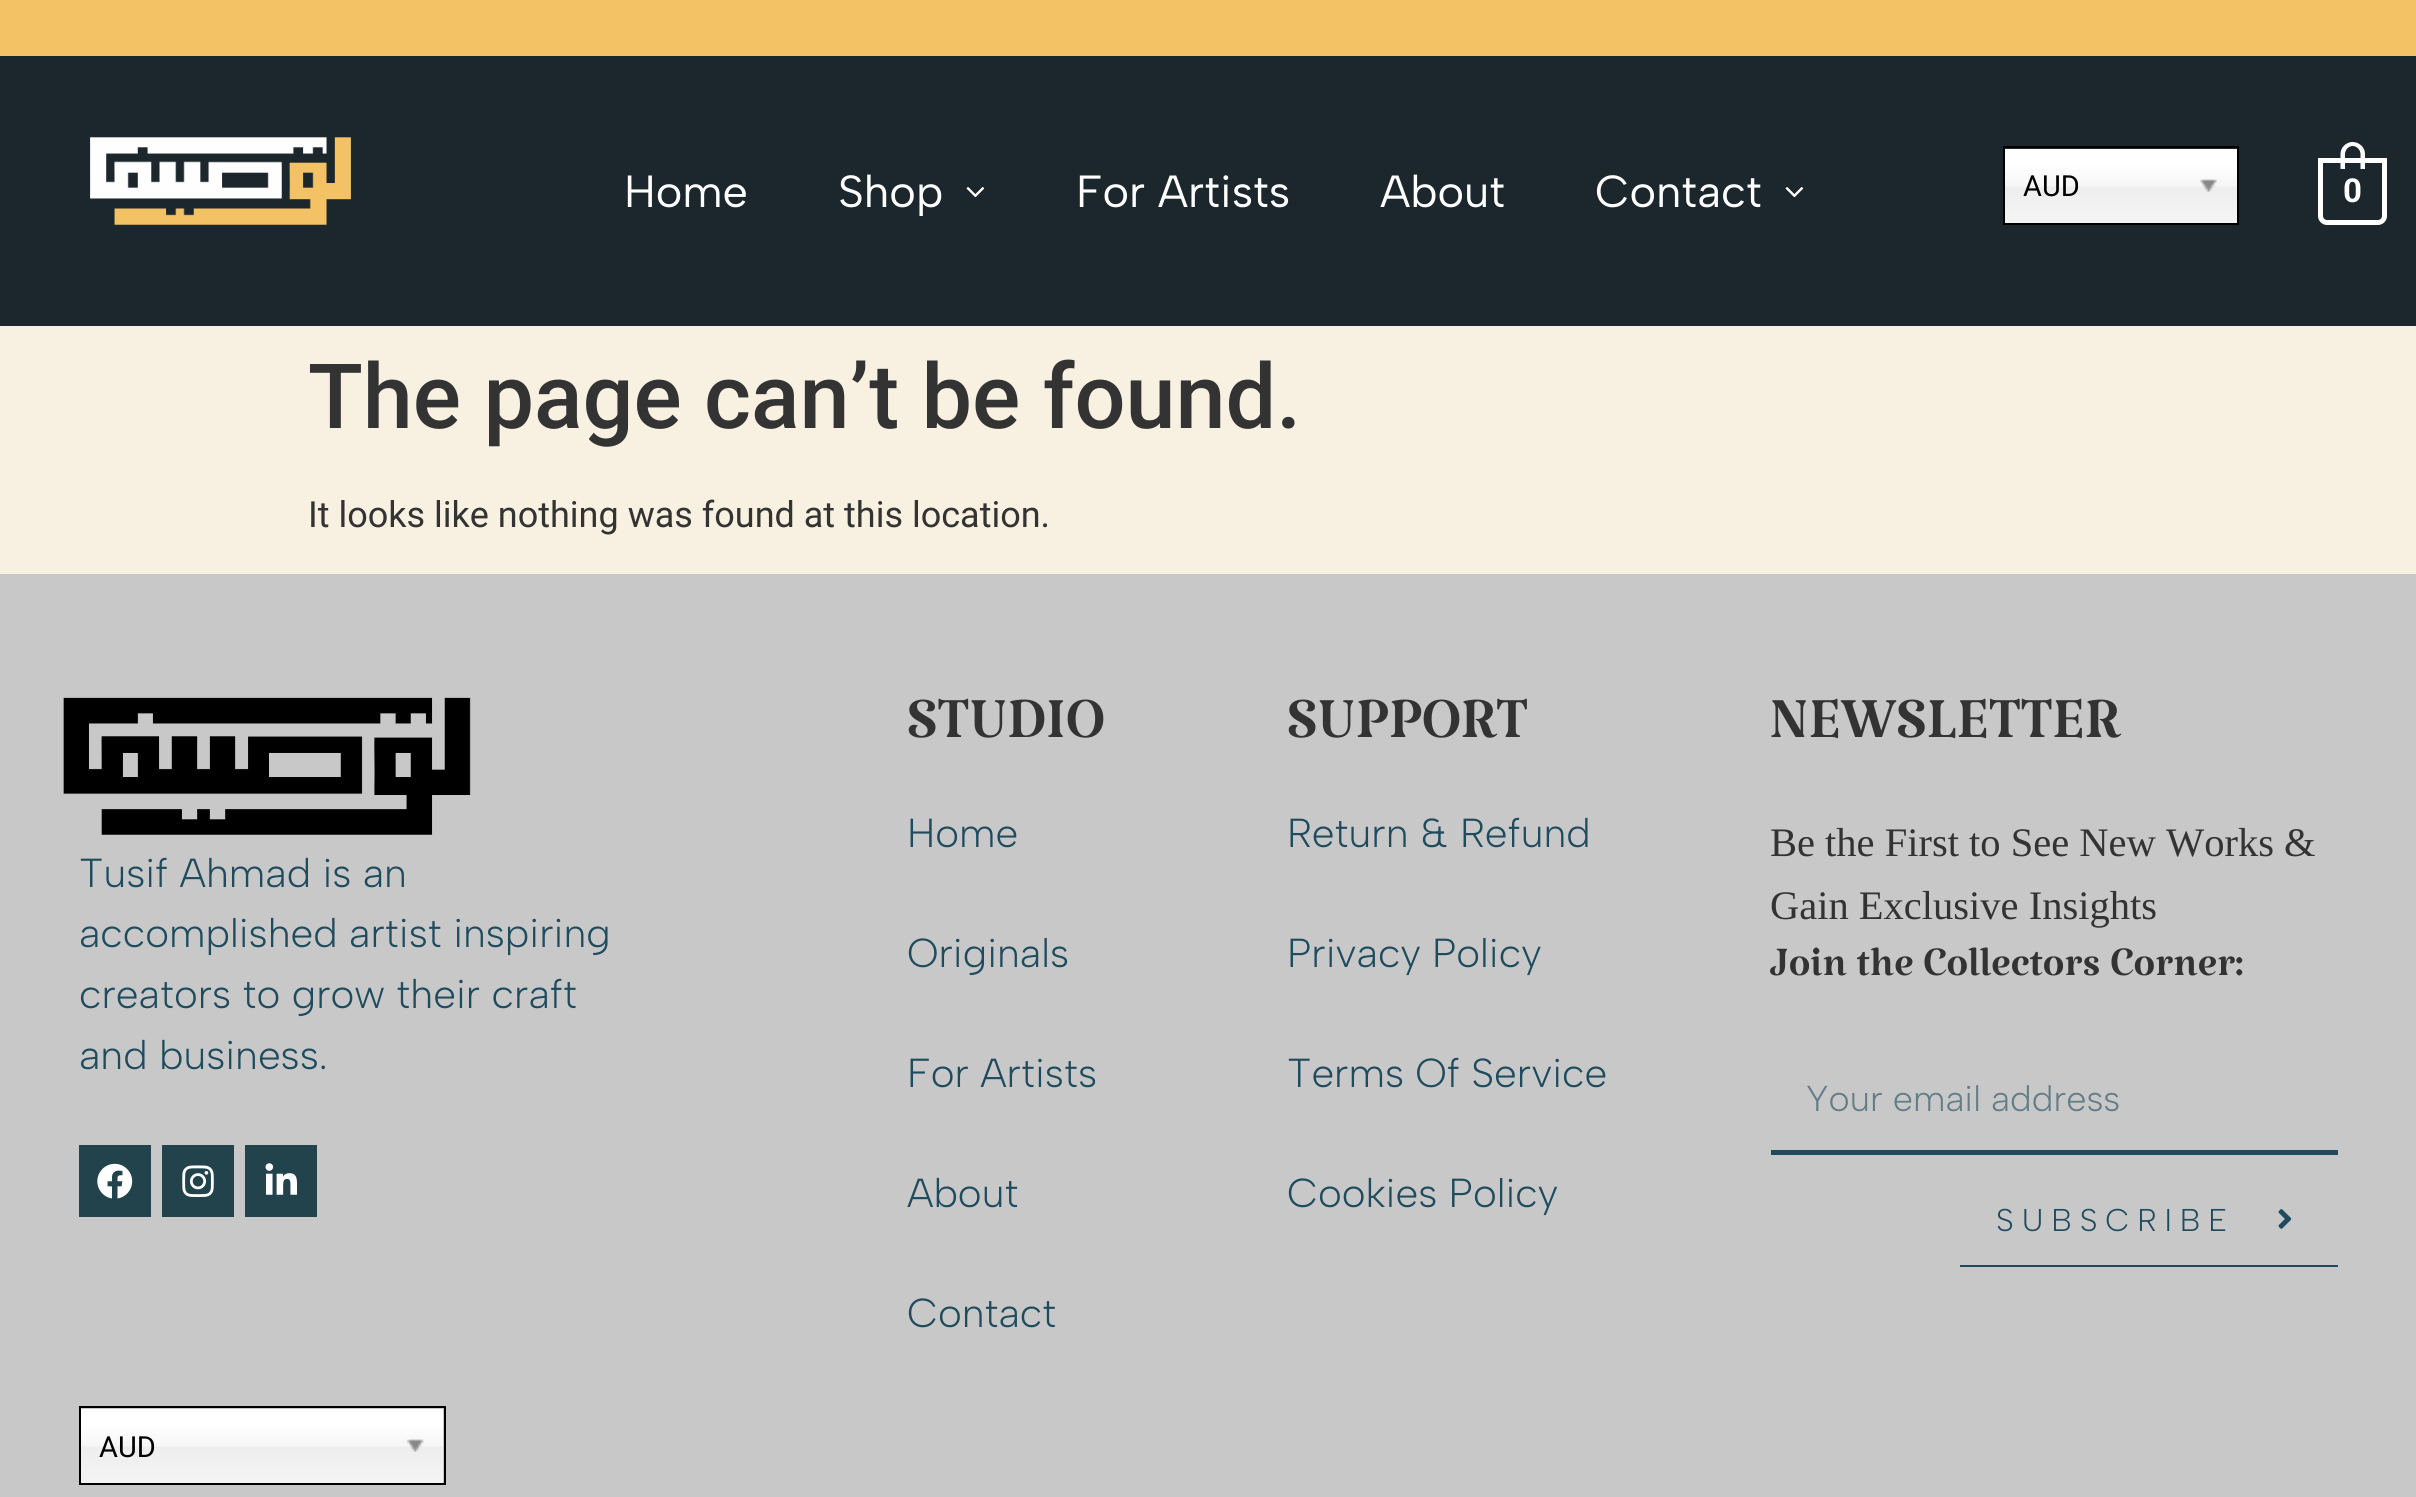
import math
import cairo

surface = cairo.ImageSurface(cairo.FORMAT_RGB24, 2416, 1497)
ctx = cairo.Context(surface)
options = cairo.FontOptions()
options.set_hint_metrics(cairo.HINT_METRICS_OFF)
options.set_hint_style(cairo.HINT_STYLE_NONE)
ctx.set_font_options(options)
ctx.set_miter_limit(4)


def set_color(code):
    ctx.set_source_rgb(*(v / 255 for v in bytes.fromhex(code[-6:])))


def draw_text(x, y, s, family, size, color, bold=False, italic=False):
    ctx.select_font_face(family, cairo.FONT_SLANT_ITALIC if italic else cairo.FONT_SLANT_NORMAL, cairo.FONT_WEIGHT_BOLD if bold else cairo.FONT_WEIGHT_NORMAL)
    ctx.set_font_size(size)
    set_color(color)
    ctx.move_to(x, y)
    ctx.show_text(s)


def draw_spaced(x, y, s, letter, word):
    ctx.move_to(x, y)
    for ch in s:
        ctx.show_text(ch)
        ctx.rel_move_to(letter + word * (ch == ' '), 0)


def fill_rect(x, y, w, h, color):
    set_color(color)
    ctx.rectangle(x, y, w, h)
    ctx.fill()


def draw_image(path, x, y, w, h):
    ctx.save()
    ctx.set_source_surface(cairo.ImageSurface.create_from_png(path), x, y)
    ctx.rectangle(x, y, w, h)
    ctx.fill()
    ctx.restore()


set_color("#f8f1e1")
ctx.paint()
fill_rect(0, 0, 2416, 56, "#f3c265")
fill_rect(0, 56, 2416, 270, "#1b272c")
draw_image("assets/img1.png", 90, 137, 261, 88)
draw_text(624, 207, "Home", "Albert Sans", 45, "#ffffff")
draw_text(838, 207, "Shop", "Albert Sans", 45, "#ffffff")
draw_image("assets/img2.png", 966, 187, 19, 11)
draw_text(1076, 207, "For Artists", "Albert Sans", 45, "#ffffff")
draw_text(1380, 207, "About", "Albert Sans", 45, "#ffffff")
draw_text(1595, 207, "Contact", "Albert Sans", 45, "#ffffff")
draw_image("assets/img2.png", 1785, 187, 19, 11)
gradient = cairo.LinearGradient(2121, 149, 2121, 223)
gradient.add_color_stop_rgba(0.2, 1, 1, 1, 1)
gradient.add_color_stop_rgba(0.5, 0.965, 0.965, 0.965, 1)
gradient.add_color_stop_rgba(0.52, 0.933, 0.933, 0.933, 1)
gradient.add_color_stop_rgba(1, 0.957, 0.957, 0.957, 1)
ctx.set_source(gradient)
ctx.rectangle(2005, 149, 232, 74)
ctx.fill()
ctx.rectangle(2004, 147, 234, 77)
set_color("#000000")
ctx.stroke()
draw_text(2023, 196, "AUD", "Roboto", 29, "#000000")
draw_image("assets/img3.png", 2200, 179, 17, 14)
ctx.new_path()
ctx.move_to(2320.5, 160.5)
ctx.line_to(2384.5, 160.5)
ctx.line_to(2384.5, 216)
ctx.curve_to(2384.5, 219.5, 2381.5, 222.5, 2378, 222.5)
ctx.line_to(2327, 222.5)
ctx.curve_to(2323.5, 222.5, 2320.5, 219.5, 2320.5, 216)
ctx.close_path()
set_color("#ffffff")
ctx.set_line_width(5)
ctx.stroke()
ctx.set_fill_rule(cairo.FILL_RULE_EVEN_ODD)
ctx.new_path()
ctx.move_to(2352.5, 142)
ctx.curve_to(2359.5, 142, 2365, 147.5, 2365, 154)
ctx.line_to(2365, 169)
ctx.line_to(2340.5, 169)
ctx.line_to(2340.5, 154)
ctx.curve_to(2340.5, 147.5, 2346, 142, 2352.5, 142)
ctx.close_path()
ctx.move_to(2352.5, 146)
ctx.curve_to(2357, 146, 2360.5, 150, 2360.5, 154)
ctx.line_to(2360.5, 169)
ctx.line_to(2345, 169)
ctx.line_to(2345, 154)
ctx.curve_to(2345, 150, 2348.5, 146, 2352.5, 146)
ctx.close_path()
ctx.fill()
draw_text(2343, 202, "0", "Roboto", 33, "#ffffff", bold=True)
draw_text(308, 428, "The page can’t be found.", "Roboto Medium", 90, "#333333")
draw_text(308, 527, "It looks like nothing was found at this location.", "Roboto", 36, "#333333")
fill_rect(0, 574, 2416, 923, "#c8c8c8")
draw_image("assets/img4.png", 63, 697, 408, 138)
draw_text(79, 887, "Tusif Ahmad is an", "Albert Sans Light", 40.5, "#1e4b5e")
draw_text(79, 947, "accomplished artist inspiring", "Albert Sans Light", 40.5, "#1e4b5e")
draw_text(79, 1008, "creators to grow their craft", "Albert Sans Light", 40.5, "#1e4b5e")
draw_text(79, 1069, "and business.", "Albert Sans Light", 40.5, "#1e4b5e")
fill_rect(79, 1145, 72, 72, "#22434c")
draw_image("assets/img5.png", 97, 1163, 36, 36)
fill_rect(162, 1145, 72, 72, "#22434c")
draw_image("assets/img6.png", 182, 1165, 32, 32)
fill_rect(245, 1145, 72, 72, "#22434c")
draw_image("assets/img7.png", 265, 1163, 32, 32)
draw_text(907, 737, "STUDIO", "Katibeh", 78.75, "#333333")
draw_text(907, 847, "Home", "Albert Sans Light", 40.5, "#1e4b5e")
draw_text(907, 967, "Originals", "Albert Sans Light", 40.5, "#1e4b5e")
draw_text(907, 1087, "For Artists", "Albert Sans Light", 40.5, "#1e4b5e")
draw_text(907, 1207, "About", "Albert Sans Light", 40.5, "#1e4b5e")
draw_text(907, 1327, "Contact", "Albert Sans Light", 40.5, "#1e4b5e")
draw_text(1287, 737, "SUPPORT", "Katibeh", 78.75, "#333333")
draw_text(1287, 847, "Return & Refund", "Albert Sans Light", 40.5, "#1e4b5e")
draw_text(1287, 967, "Privacy Policy", "Albert Sans Light", 40.5, "#1e4b5e")
draw_text(1287, 1087, "Terms Of Service", "Albert Sans Light", 40.5, "#1e4b5e")
draw_text(1287, 1207, "Cookies Policy", "Albert Sans Light", 40.5, "#1e4b5e")
draw_text(1770, 737, "NEWSLETTER", "Katibeh", 78.75, "#333333")
draw_text(1770, 856, "Be the First to See New Works &", "Liberation Serif", 40.5, "#333333")
draw_text(1770, 919, "Gain Exclusive Insights", "Liberation Serif", 40.5, "#333333")
draw_text(1770, 975, "Join the Collectors Corner:", "Katibeh", 56.25, "#333333")
fill_rect(1771, 1150, 567, 5, "#1e4b5e")
draw_text(1806, 1111, "Your email address", "Albert Sans Light", 36, "#627d88")
fill_rect(1960, 1265, 378, 2, "#1e4b5e")
ctx.set_font_size(31.5)
draw_spaced(1996, 1231, "SUBSCRIBE", 7.9, 0)
draw_image("assets/img8.png", 2278, 1209, 14, 20)
gradient = cairo.LinearGradient(262, 1409, 262, 1483)
gradient.add_color_stop_rgba(0.2, 1, 1, 1, 1)
gradient.add_color_stop_rgba(0.5, 0.965, 0.965, 0.965, 1)
gradient.add_color_stop_rgba(0.52, 0.933, 0.933, 0.933, 1)
gradient.add_color_stop_rgba(1, 0.957, 0.957, 0.957, 1)
ctx.set_source(gradient)
ctx.rectangle(81, 1409, 362, 74)
ctx.fill()
ctx.rectangle(80, 1407, 365, 77)
set_color("#000000")
ctx.set_line_width(2)
ctx.stroke()
draw_text(99, 1457, "AUD", "Roboto", 29, "#000000")
draw_image("assets/img9.png", 406, 1439, 18, 14)
surface.write_to_png("output.png")
